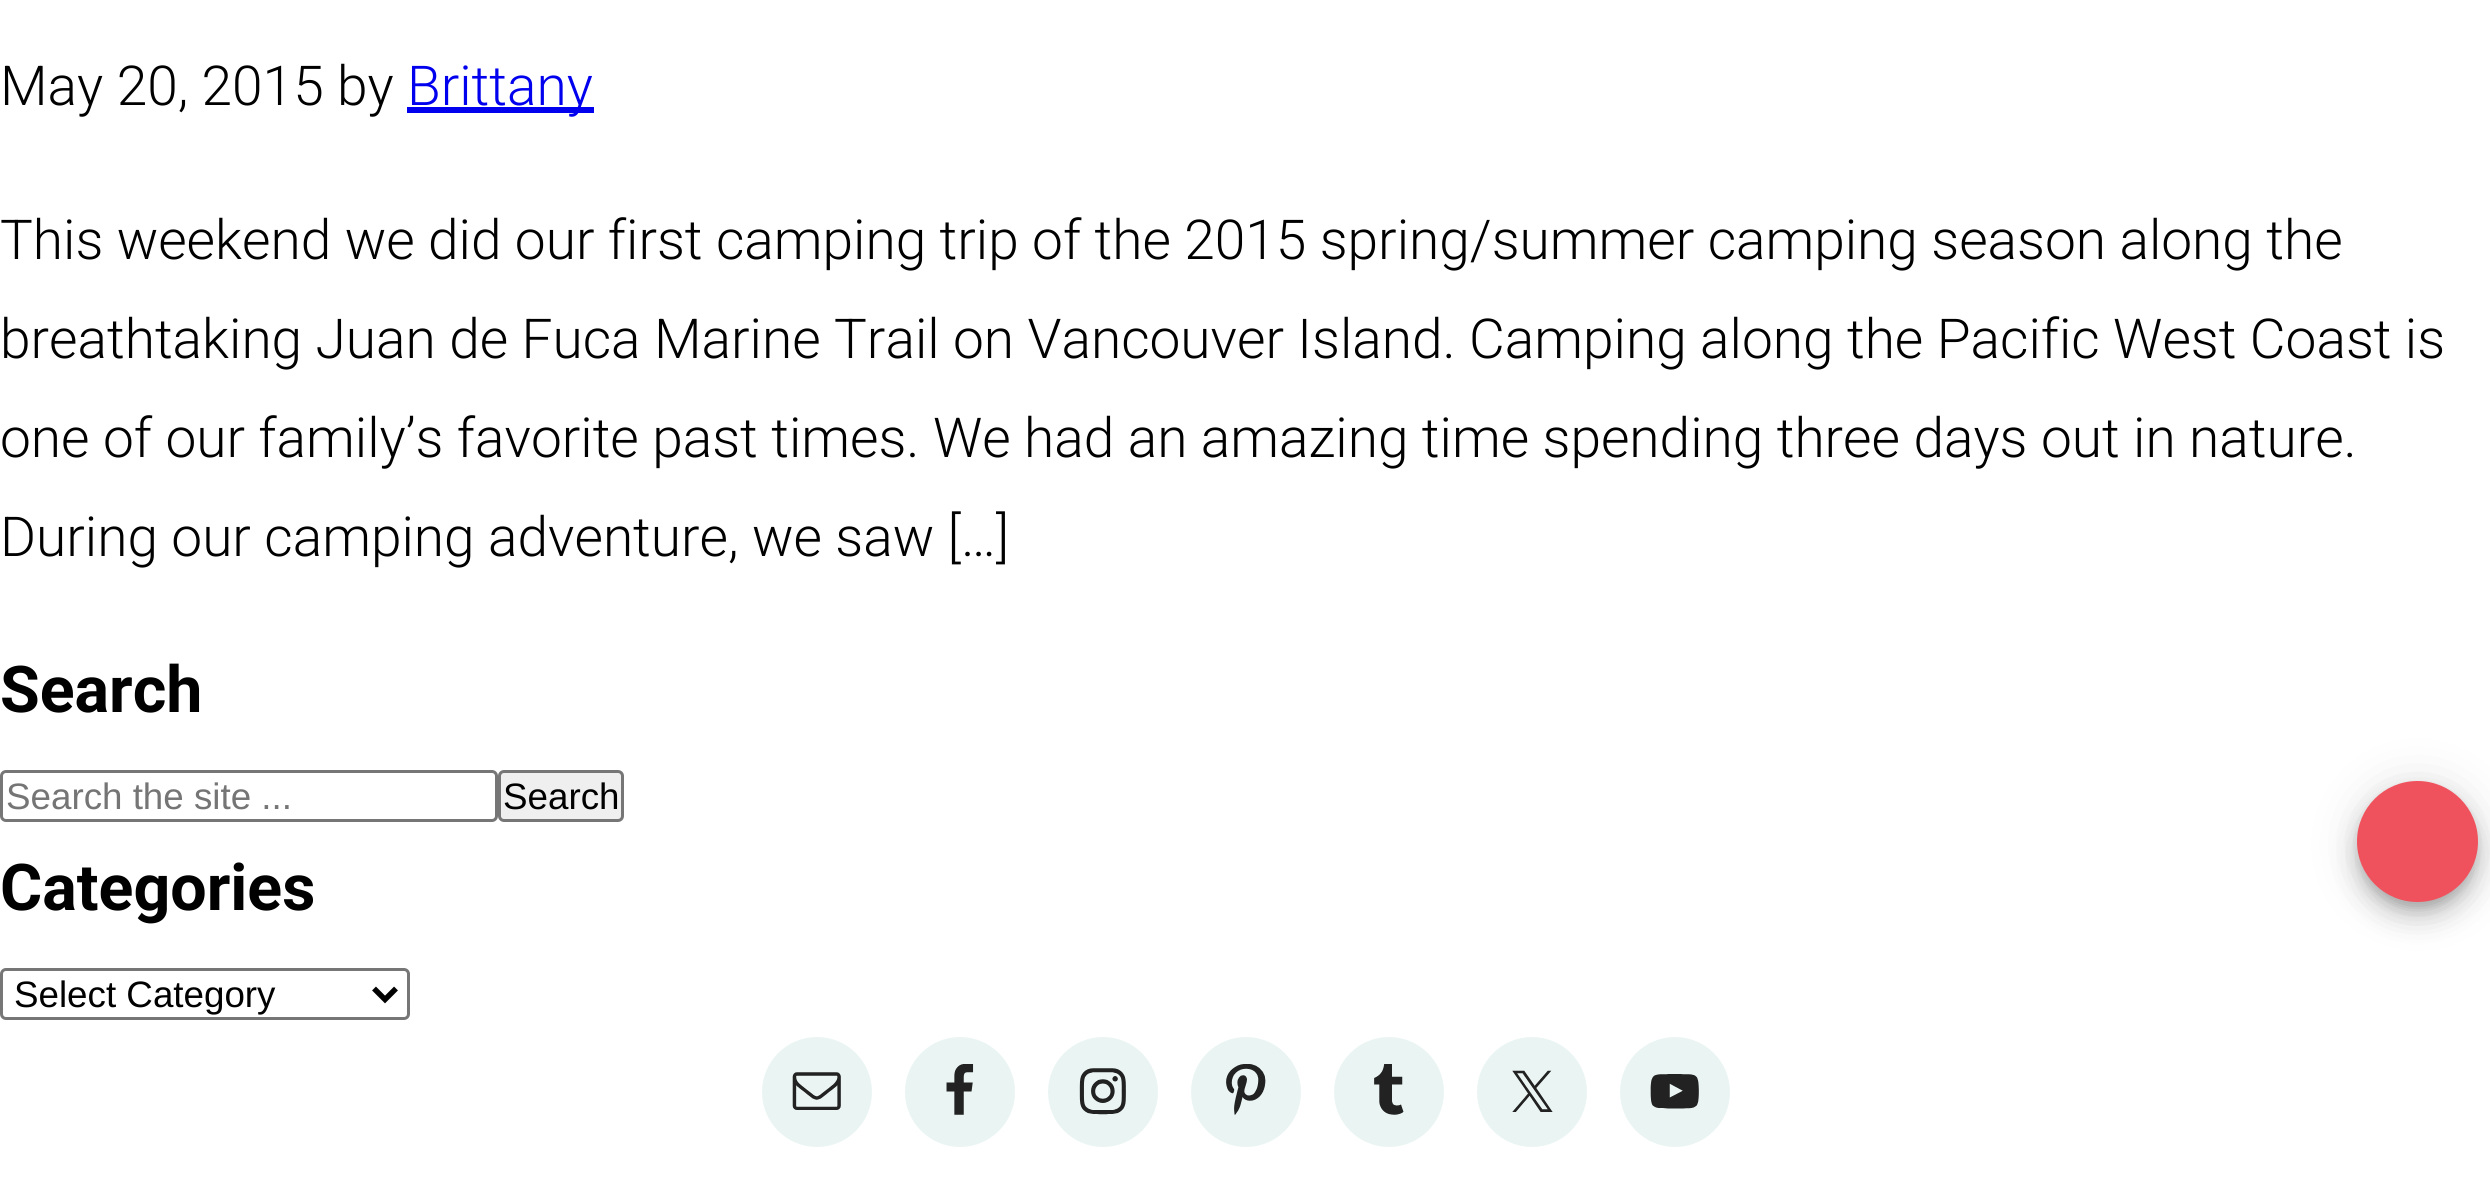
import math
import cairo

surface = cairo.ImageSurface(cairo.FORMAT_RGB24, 2490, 1197)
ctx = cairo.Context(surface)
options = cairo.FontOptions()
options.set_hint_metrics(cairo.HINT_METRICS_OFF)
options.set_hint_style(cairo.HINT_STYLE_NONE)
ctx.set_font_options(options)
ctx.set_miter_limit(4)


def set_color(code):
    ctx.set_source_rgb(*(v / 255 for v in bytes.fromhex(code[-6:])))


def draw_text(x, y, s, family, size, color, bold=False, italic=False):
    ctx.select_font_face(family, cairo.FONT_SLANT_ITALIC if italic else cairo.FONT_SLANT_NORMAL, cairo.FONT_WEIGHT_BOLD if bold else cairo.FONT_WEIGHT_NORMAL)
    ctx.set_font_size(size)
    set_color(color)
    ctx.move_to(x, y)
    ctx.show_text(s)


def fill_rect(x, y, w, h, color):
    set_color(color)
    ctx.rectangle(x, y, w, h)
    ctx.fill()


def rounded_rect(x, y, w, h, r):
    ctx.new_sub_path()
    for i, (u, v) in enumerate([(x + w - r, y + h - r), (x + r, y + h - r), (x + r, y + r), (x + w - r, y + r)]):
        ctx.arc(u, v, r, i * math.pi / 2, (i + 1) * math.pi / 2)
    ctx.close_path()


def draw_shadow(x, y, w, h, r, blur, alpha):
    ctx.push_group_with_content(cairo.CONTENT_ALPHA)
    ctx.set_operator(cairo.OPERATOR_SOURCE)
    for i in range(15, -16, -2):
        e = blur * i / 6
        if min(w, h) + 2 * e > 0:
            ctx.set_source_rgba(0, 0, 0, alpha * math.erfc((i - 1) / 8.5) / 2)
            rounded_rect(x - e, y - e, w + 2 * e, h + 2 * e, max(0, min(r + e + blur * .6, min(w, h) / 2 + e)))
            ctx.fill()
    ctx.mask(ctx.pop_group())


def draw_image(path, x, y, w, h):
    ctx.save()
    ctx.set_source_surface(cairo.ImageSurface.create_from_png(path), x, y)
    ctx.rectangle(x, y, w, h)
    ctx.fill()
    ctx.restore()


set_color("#ffffff")
ctx.paint()
draw_text(0, 105, "May 20, 2015 by", "Roboto Light", 55, "#000000")
fill_rect(407, 107, 187, 6, "#0000ee")
draw_text(407, 105, "Brittany", "Roboto Light", 55, "#0000ee")
draw_text(0, 259, "This weekend we did our first camping trip of the 2015 spring/summer camping season along the", "Roboto Light", 55, "#000000")
draw_text(0, 358, "breathtaking Juan de Fuca Marine Trail on Vancouver Island. Camping along the Pacific West Coast is", "Roboto Light", 55, "#000000")
draw_text(0, 457, "one of our family’s favorite past times. We had an amazing time spending three days out in nature.", "Roboto Light", 55, "#000000")
draw_text(0, 556, "During our camping adventure, we saw […]", "Roboto Light", 55, "#000000")
draw_text(0, 712, "Search", "Roboto", 64.5, "#000000", bold=True)
rounded_rect(1.5, 771.5, 495, 49, 4.5)
set_color("#767676")
ctx.set_line_width(3)
ctx.stroke()
draw_text(6, 809, "Search the site ...", "Liberation Sans", 36.75, "#757575")
set_color("#efefef")
rounded_rect(499.5, 771.5, 123, 49, 4.5)
ctx.fill_preserve()
set_color("#767676")
ctx.stroke()
draw_text(503, 809, "Search", "Liberation Sans", 36.75, "#000000")
draw_text(0, 910, "Categories", "Roboto", 64.5, "#000000", bold=True)
rounded_rect(1.5, 969.5, 407, 49, 4.5)
set_color("#767676")
ctx.stroke()
ctx.new_path()
ctx.move_to(374, 988.5)
ctx.line_to(385, 999.5)
ctx.line_to(396, 988.5)
set_color("#000000")
ctx.set_line_width(5.5)
ctx.stroke()
draw_text(14, 1007, "Select Category", "Liberation Sans", 36.75, "#000000")
set_color("#eaf5f3")
ctx.new_path()
ctx.arc(817, 1092, 55, 0, 2 * math.pi)
ctx.fill()
draw_image("assets/img1.png", 792, 1072, 49, 38)
ctx.arc(960, 1092, 55, 0, 2 * math.pi)
ctx.fill()
draw_image("assets/img2.png", 946, 1064, 28, 51)
ctx.arc(1103, 1092, 55, 0, 2 * math.pi)
ctx.fill()
draw_image("assets/img3.png", 1079, 1068, 47, 47)
ctx.arc(1246, 1092, 55, 0, 2 * math.pi)
ctx.fill()
draw_image("assets/img4.png", 1226, 1064, 40, 51)
ctx.arc(1389, 1092, 55, 0, 2 * math.pi)
ctx.fill()
draw_image("assets/img5.png", 1374, 1064, 30, 51)
ctx.arc(1532, 1092, 55, 0, 2 * math.pi)
ctx.fill()
draw_image("assets/img6.png", 1512, 1070, 41, 42)
ctx.arc(1675, 1092, 55, 0, 2 * math.pi)
ctx.fill()
draw_image("assets/img7.png", 1650, 1074, 49, 35)
set_color("#000000")
draw_shadow(2357, 784, 121, 121, 60.5, 25, 0.12)
draw_shadow(2357, 798, 121, 121, 60.5, 14, 0.14)
draw_shadow(2360, 792, 115, 116, 57.5, 7, 0.2)
set_color("#f0525d")
ctx.arc(2417.5, 841.5, 60.5, 0, 2 * math.pi)
ctx.fill()
surface.write_to_png("output.png")
